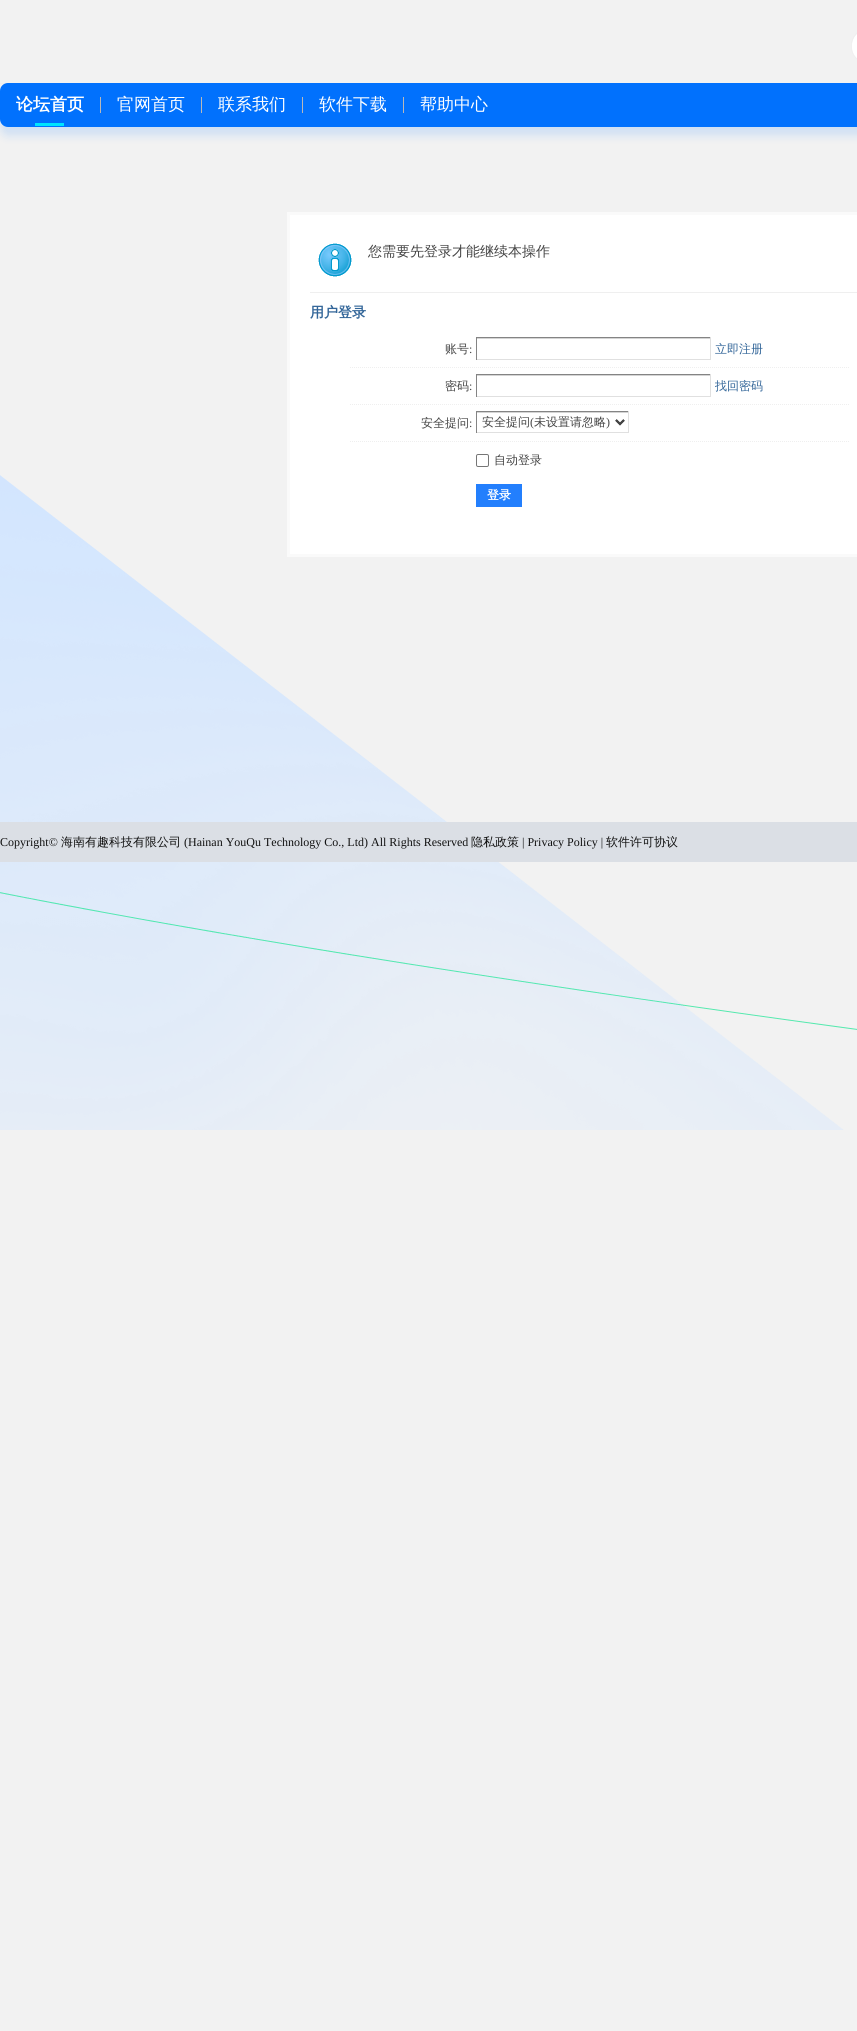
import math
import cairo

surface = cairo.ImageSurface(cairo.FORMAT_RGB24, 857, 2031)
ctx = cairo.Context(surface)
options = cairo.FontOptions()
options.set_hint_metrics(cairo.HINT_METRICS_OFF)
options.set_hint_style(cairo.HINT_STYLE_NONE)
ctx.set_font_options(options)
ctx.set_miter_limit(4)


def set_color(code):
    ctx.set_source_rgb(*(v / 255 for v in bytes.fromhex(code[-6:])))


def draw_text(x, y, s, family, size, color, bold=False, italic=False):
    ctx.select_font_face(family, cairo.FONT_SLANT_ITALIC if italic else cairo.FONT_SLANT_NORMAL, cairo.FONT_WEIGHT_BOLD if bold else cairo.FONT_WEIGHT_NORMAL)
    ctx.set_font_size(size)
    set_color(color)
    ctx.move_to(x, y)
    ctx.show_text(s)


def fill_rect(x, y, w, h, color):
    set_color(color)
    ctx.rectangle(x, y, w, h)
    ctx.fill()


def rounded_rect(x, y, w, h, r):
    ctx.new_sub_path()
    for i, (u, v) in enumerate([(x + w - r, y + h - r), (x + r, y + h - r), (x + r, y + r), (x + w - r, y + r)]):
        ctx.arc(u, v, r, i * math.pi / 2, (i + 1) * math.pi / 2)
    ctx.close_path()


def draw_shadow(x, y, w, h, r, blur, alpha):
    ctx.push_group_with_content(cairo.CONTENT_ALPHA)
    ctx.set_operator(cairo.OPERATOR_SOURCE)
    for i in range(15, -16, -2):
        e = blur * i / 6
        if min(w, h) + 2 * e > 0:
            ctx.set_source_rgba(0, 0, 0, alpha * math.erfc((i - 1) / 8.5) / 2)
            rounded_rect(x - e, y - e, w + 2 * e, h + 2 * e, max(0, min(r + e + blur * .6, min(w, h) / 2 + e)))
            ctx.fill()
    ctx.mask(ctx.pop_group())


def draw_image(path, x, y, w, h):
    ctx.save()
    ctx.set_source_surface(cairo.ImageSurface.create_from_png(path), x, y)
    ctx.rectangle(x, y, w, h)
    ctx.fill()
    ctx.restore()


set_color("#f2f2f2")
ctx.paint()
fill_rect(0, 83, 8, 1, "#efefef")
set_color("#ffffff")
ctx.new_path()
ctx.move_to(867, 30)
ctx.line_to(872, 30)
ctx.line_to(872, 62)
ctx.line_to(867, 62)
ctx.curve_to(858.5, 62, 852, 55.5, 852, 47)
ctx.line_to(852, 45)
ctx.curve_to(852, 36.5, 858.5, 30, 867, 30)
ctx.close_path()
ctx.fill()
set_color("#efefef")
ctx.set_fill_rule(cairo.FILL_RULE_EVEN_ODD)
ctx.new_path()
ctx.move_to(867, 29)
ctx.line_to(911, 29)
ctx.line_to(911, 63)
ctx.line_to(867, 63)
ctx.curve_to(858, 63, 851, 56, 851, 47)
ctx.line_to(851, 45)
ctx.curve_to(851, 36, 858, 29, 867, 29)
ctx.close_path()
ctx.move_to(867, 30)
ctx.line_to(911, 30)
ctx.line_to(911, 62)
ctx.line_to(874, 62)
ctx.curve_to(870, 62, 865, 63, 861, 61)
ctx.curve_to(846, 55, 850, 30, 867, 30)
ctx.close_path()
ctx.fill()
set_color("#0171fd")
draw_shadow(0, 92, 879, 44, 8, 4.5, 0.14)
set_color("#0171fd")
rounded_rect(0, 83, 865, 44, 8)
ctx.fill()
draw_text(16, 110, "论坛首页", "WenQuanYi Zen Hei", 17, "#ffffff", bold=True)
fill_rect(35, 123, 29, 3, "#00e4ff")
fill_rect(100, 97, 1, 16, "#b9b8b8")
draw_text(117, 110, "官网首页", "WenQuanYi Zen Hei Medium", 17, "#ffffff")
fill_rect(201, 97, 1, 16, "#b9b8b8")
draw_text(218, 110, "联系我们", "WenQuanYi Zen Hei Medium", 17, "#ffffff")
fill_rect(302, 97, 1, 16, "#b9b8b8")
draw_text(319, 110, "软件下载", "WenQuanYi Zen Hei Medium", 17, "#ffffff")
fill_rect(403, 97, 1, 16, "#b9b8b8")
draw_text(420, 110, "帮助中心", "WenQuanYi Zen Hei Medium", 17, "#ffffff")
draw_image("assets/img3.png", 0, 475, 857, 655)
ctx.rectangle(288.5, 213.5, 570, 342)
ctx.fill_preserve()
set_color("#fafafa")
ctx.set_line_width(3)
ctx.stroke()
draw_image("assets/img1.png", 318, 243, 34, 34)
draw_text(368, 256, "您需要先登录才能继续本操作", "WenQuanYi Zen Hei Medium", 14, "#444444")
fill_rect(310, 292, 547, 1, "#efefef")
draw_text(310, 317, "用户登录", "WenQuanYi Zen Hei", 14, "#336699", bold=True)
ctx.new_path()
ctx.move_to(350, 367.5)
ctx.line_to(850, 367.5)
set_color("#efefef")
ctx.set_line_width(1)
ctx.set_dash([1, 1])
ctx.stroke()
draw_text(445, 353, "账号", "WenQuanYi Zen Hei Medium", 12, "#444444")
draw_text(469, 353, ":", "Liberation Serif", 12, "#444444")
fill_rect(476, 338, 235, 1, "#d4d4d4")
fill_rect(476, 337, 235, 1, "#848484")
fill_rect(710, 337, 1, 23, "#e0e0e0")
fill_rect(476, 359, 235, 1, "#e0e0e0")
fill_rect(476, 337, 1, 23, "#848484")
draw_text(715, 353, "立即注册", "WenQuanYi Zen Hei Medium", 12, "#336699")
ctx.new_path()
ctx.move_to(350, 404.5)
ctx.line_to(850, 404.5)
set_color("#efefef")
ctx.stroke()
draw_text(445, 390, "密码", "WenQuanYi Zen Hei Medium", 12, "#444444")
draw_text(469, 390, ":", "Liberation Serif", 12, "#444444")
fill_rect(476, 375, 235, 1, "#d4d4d4")
fill_rect(476, 374, 235, 1, "#848484")
fill_rect(710, 374, 1, 23, "#e0e0e0")
fill_rect(476, 396, 235, 1, "#e0e0e0")
fill_rect(476, 374, 1, 23, "#848484")
draw_text(715, 390, "找回密码", "WenQuanYi Zen Hei Medium", 12, "#336699")
ctx.new_path()
ctx.move_to(350, 441.5)
ctx.line_to(850, 441.5)
set_color("#efefef")
ctx.stroke()
draw_text(421, 427, "安全提问", "WenQuanYi Zen Hei Medium", 12, "#444444")
draw_text(469, 427, ":", "Liberation Serif", 12, "#444444")
draw_image("assets/img2.png", 477, 412, 151, 14)
fill_rect(476, 411, 153, 1, "#848484")
fill_rect(628, 411, 1, 22, "#e0e0e0")
fill_rect(476, 432, 153, 1, "#e0e0e0")
fill_rect(476, 411, 1, 22, "#848484")
ctx.new_path()
ctx.move_to(616, 420)
ctx.line_to(620, 424)
ctx.line_to(624, 420)
set_color("#444444")
ctx.set_line_width(2)
ctx.set_dash([])
ctx.stroke()
draw_text(482, 426, "安全提问", "WenQuanYi Zen Hei Medium", 12, "#444444")
draw_text(530, 426, "(", "Liberation Serif", 12, "#444444")
draw_text(534, 426, "未设置请忽略", "WenQuanYi Zen Hei Medium", 12, "#444444")
draw_text(606, 426, ")", "Liberation Serif", 12, "#444444")
rounded_rect(476.5, 454.5, 12, 12, 1.5)
set_color("#767676")
ctx.set_line_width(1)
ctx.stroke()
draw_text(494, 464, "自动登录", "WenQuanYi Zen Hei Medium", 12, "#444444")
fill_rect(476, 484, 46, 23, "#237ffd")
draw_text(487, 499, "登录", "WenQuanYi Zen Hei", 12, "#ffffff", bold=True)
fill_rect(0, 822, 857, 40, "#dbdfe5")
draw_text(0, 846, "Copyright©", "Liberation Serif", 12, "#111111")
draw_text(61, 846, "海南有趣科技有限公司", "WenQuanYi Zen Hei Medium", 12, "#111111")
draw_text(184, 846, "(Hainan YouQu Technology Co., Ltd) All Rights Reserved", "Liberation Serif", 12, "#111111")
draw_text(471, 846, "隐私政策", "WenQuanYi Zen Hei Medium", 12, "#111111")
draw_text(522, 846, "| Privacy Policy |", "Liberation Serif", 12, "#111111")
draw_text(606, 846, "软件许可协议", "WenQuanYi Zen Hei Medium", 12, "#111111")
surface.write_to_png("output.png")
